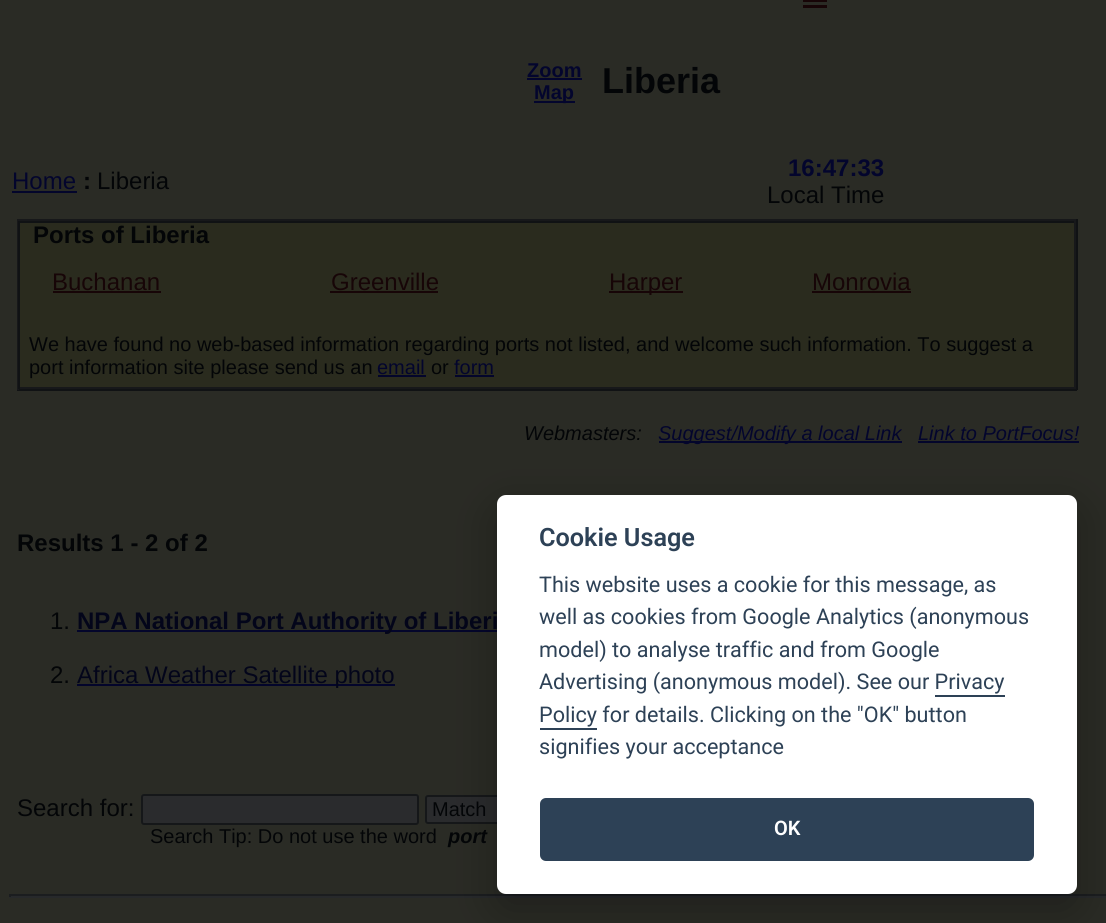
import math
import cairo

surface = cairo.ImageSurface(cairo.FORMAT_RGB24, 1106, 923)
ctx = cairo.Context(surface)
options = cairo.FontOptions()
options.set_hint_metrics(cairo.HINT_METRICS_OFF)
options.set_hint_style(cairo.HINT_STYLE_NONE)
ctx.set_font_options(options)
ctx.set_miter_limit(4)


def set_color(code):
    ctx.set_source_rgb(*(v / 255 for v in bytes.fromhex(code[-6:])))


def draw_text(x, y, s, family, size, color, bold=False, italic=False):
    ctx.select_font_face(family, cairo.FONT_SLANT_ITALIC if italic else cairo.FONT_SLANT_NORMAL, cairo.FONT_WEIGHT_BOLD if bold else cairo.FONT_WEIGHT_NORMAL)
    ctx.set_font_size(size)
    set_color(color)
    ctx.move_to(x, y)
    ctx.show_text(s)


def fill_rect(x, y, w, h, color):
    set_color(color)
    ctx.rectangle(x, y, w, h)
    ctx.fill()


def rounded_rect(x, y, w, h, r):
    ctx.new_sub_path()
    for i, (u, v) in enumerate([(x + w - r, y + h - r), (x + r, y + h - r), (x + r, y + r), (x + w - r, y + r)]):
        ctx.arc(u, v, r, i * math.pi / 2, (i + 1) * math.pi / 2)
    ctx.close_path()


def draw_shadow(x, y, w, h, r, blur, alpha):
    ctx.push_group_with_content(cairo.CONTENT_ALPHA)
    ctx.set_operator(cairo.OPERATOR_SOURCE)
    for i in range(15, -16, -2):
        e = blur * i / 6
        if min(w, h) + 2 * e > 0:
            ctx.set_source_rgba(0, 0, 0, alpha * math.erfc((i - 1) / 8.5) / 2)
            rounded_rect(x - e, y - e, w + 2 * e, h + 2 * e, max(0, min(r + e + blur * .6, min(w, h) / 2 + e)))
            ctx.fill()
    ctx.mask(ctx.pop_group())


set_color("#2a2b25")
ctx.paint()
fill_rect(803, 5, 24, 3, "#170507")
fill_rect(803, 0, 24, 2, "#170507")
draw_text(527, 77, "Zoom", "Liberation Sans", 20, "#03052d", bold=True)
fill_rect(527, 78, 55, 2, "#03052d")
fill_rect(534, 101, 41, 2, "#03052d")
draw_text(534, 99, "Map", "Liberation Sans", 20, "#03052d", bold=True)
draw_text(602, 93, "Liberia", "Liberation Sans", 36, "#030507", bold=True)
draw_text(12, 189, "Home", "Liberation Sans", 24, "#03052d")
fill_rect(12, 191, 65, 2, "#03052b")
draw_text(83, 189, ":", "Liberation Sans", 24, "#030507", bold=True)
draw_text(97, 189, "Liberia", "Liberation Sans", 24, "#030507")
draw_text(788, 176, "16:47:33", "Liberation Sans", 24, "#03052d", bold=True)
draw_text(767, 203, "Local Time", "Liberation Sans", 24, "#030507")
fill_rect(20, 223, 1054, 164, "#2a2b1e")
fill_rect(17, 219, 1060, 2, "#17181a")
fill_rect(1076, 219, 2, 171, "#101214")
fill_rect(17, 389, 1060, 2, "#101214")
fill_rect(17, 219, 2, 171, "#17181a")
fill_rect(18, 221, 1058, 2, "#101214")
fill_rect(1074, 221, 2, 168, "#17181a")
fill_rect(18, 387, 1058, 2, "#17181a")
fill_rect(18, 221, 2, 168, "#101214")
draw_text(33, 243, "Ports of Liberia", "Liberation Sans", 24, "#030507", bold=True)
draw_text(52, 290, "Buchanan", "Liberation Sans", 24, "#170507")
fill_rect(53, 291, 108, 2, "#170507")
draw_text(331, 290, "Greenville", "Liberation Sans", 24, "#170507")
fill_rect(330, 291, 108, 2, "#170507")
fill_rect(609, 291, 74, 2, "#170507")
draw_text(609, 290, "Harper", "Liberation Sans", 24, "#170507")
draw_text(812, 290, "Monrovia", "Liberation Sans", 24, "#170507")
fill_rect(812, 291, 99, 2, "#170507")
draw_text(29, 351, "We have found no web-based information regarding ports not listed, and welcome such information. To suggest a", "Liberation Sans", 20, "#030507")
draw_text(29, 374, "port information site please send us an", "Liberation Sans", 20, "#030507")
draw_text(377, 374, "email", "Liberation Sans", 20, "#03052d")
fill_rect(378, 375, 48, 2, "#03052b")
draw_text(431, 374, "or", "Liberation Sans", 20, "#030507")
draw_text(454, 374, "form", "Liberation Sans", 20, "#03052d")
fill_rect(455, 375, 39, 2, "#03052b")
draw_text(524, 440, "Webmasters:", "Liberation Sans", 20, "#030507", italic=True)
fill_rect(659, 441, 243, 2, "#03052b")
draw_text(658, 440, "Suggest/Modify a local Link", "Liberation Sans", 20, "#03052d", italic=True)
draw_text(918, 440, "Link to PortFocus!", "Liberation Sans", 20, "#03052d", italic=True)
fill_rect(918, 441, 161, 2, "#03052b")
draw_text(17, 551, "Results 1 - 2 of 2", "Liberation Sans", 24, "#030507", bold=True)
draw_text(50, 629, "1.", "Liberation Sans", 24, "#030507")
fill_rect(77, 630, 420, 2, "#03052b")
draw_text(77, 629, "NPA National Port Authority of Liberi", "Liberation Sans", 24, "#03051a", bold=True)
draw_text(50, 683, "2.", "Liberation Sans", 24, "#030507")
fill_rect(77, 684, 318, 2, "#03052b")
draw_text(77, 683, "Africa Weather Satellite photo", "Liberation Sans", 24, "#03051a")
draw_text(17, 816, "Search for:", "Liberation Sans", 24, "#030507")
set_color("#2a2b2d")
rounded_rect(142, 795, 276, 29, 2)
ctx.fill_preserve()
set_color("#151719")
ctx.stroke()
set_color("#2a2b2d")
rounded_rect(426, 796, 125, 27, 2)
ctx.fill_preserve()
set_color("#151719")
ctx.stroke()
draw_text(432, 816, "Match", "Liberation Sans", 20, "#030507")
draw_text(150, 843, "Search Tip: Do not use the word", "Liberation Sans", 20, "#030507")
draw_text(448, 843, "port", "Liberation Sans", 20, "#030507", bold=True, italic=True)
fill_rect(9, 894, 1097, 2, "#1b1d1f")
fill_rect(9, 896, 1097, 2, "#27292b")
set_color("#020203")
draw_shadow(497, 510, 580, 399, 9, 22.5, 0.28)
set_color("#ffffff")
rounded_rect(497, 495, 580, 399, 9)
ctx.fill()
draw_text(539, 546, "Cookie Usage", "Roboto SemiBold", 25.25, "#2d4156")
draw_text(539, 592, "This website uses a cookie for this message, as", "Roboto", 21.6, "#2d4156")
draw_text(539, 624, "well as cookies from Google Analytics (anonymous", "Roboto", 21.6, "#2d4156")
draw_text(539, 657, "model) to analyse traffic and from Google", "Roboto", 21.6, "#2d4156")
draw_text(539, 689, "Advertising (anonymous model). See our Privacy", "Roboto", 21.6, "#2d4156")
draw_text(539, 722, "Policy for details. Clicking on the \"OK\" button", "Roboto", 21.6, "#2d4156")
fill_rect(935, 695, 70, 2, "#2d4156")
fill_rect(540, 728, 57, 2, "#2d4156")
draw_text(539, 754, "signifies your acceptance", "Roboto", 21.6, "#2d4156")
rounded_rect(540, 798, 494, 63, 6)
ctx.fill()
draw_text(774, 835, "OK", "Roboto SemiBold", 20, "#ffffff")
fill_rect(9, 894, 2, 3, "#1b1d1f")
surface.write_to_png("output.png")
